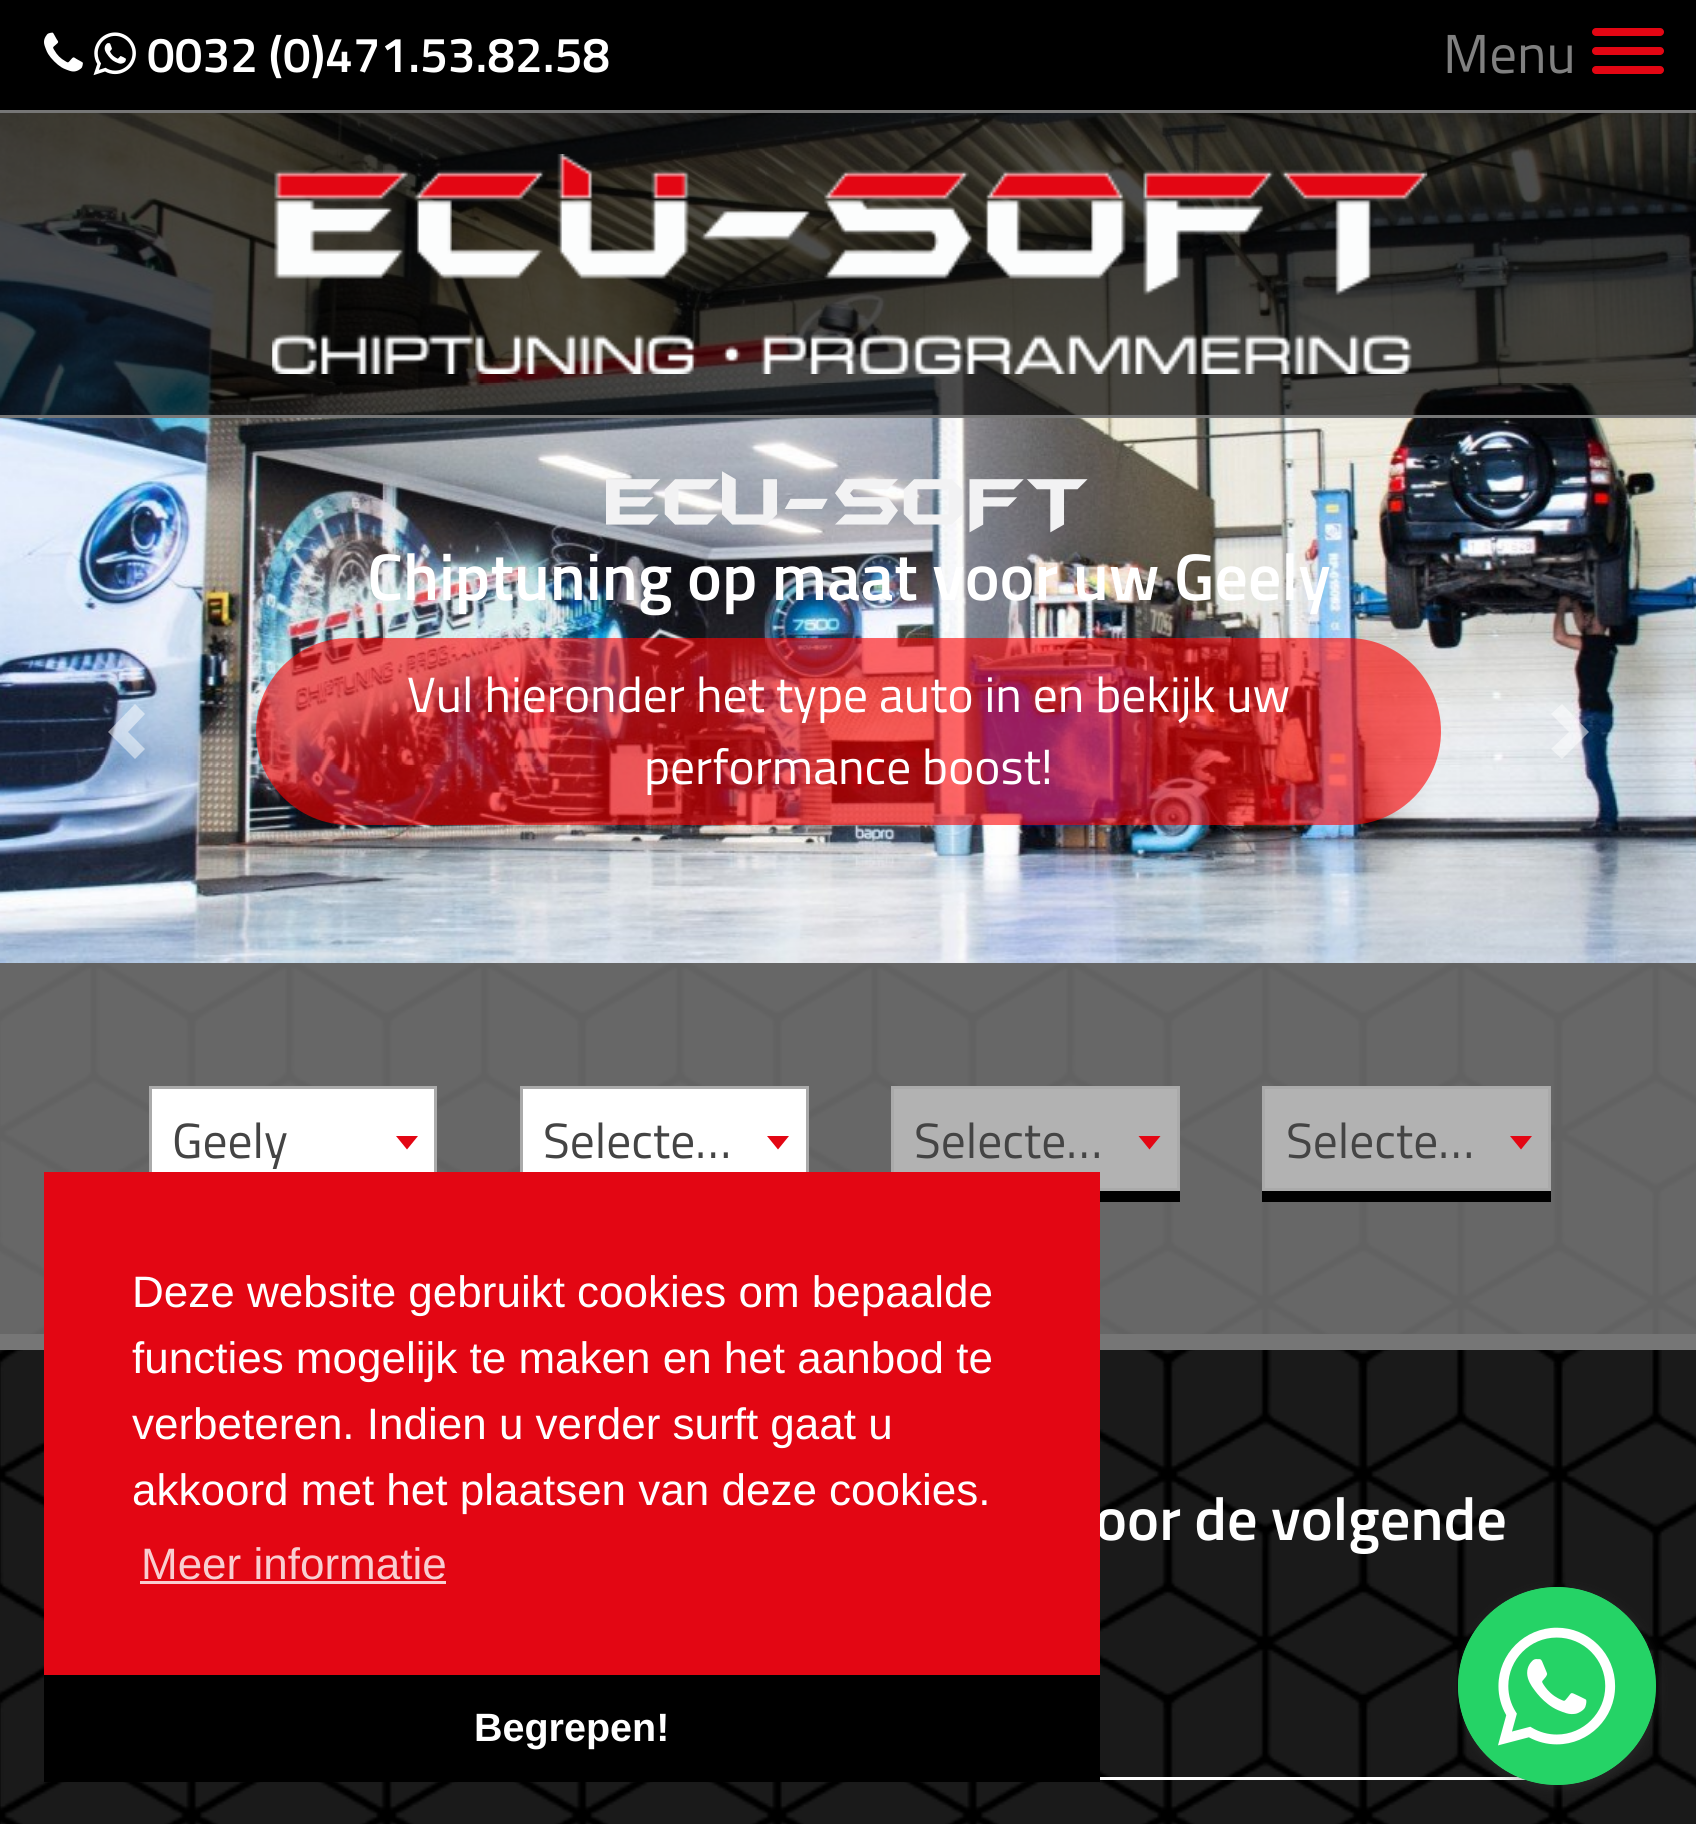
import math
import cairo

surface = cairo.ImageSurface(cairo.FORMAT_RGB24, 1696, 1824)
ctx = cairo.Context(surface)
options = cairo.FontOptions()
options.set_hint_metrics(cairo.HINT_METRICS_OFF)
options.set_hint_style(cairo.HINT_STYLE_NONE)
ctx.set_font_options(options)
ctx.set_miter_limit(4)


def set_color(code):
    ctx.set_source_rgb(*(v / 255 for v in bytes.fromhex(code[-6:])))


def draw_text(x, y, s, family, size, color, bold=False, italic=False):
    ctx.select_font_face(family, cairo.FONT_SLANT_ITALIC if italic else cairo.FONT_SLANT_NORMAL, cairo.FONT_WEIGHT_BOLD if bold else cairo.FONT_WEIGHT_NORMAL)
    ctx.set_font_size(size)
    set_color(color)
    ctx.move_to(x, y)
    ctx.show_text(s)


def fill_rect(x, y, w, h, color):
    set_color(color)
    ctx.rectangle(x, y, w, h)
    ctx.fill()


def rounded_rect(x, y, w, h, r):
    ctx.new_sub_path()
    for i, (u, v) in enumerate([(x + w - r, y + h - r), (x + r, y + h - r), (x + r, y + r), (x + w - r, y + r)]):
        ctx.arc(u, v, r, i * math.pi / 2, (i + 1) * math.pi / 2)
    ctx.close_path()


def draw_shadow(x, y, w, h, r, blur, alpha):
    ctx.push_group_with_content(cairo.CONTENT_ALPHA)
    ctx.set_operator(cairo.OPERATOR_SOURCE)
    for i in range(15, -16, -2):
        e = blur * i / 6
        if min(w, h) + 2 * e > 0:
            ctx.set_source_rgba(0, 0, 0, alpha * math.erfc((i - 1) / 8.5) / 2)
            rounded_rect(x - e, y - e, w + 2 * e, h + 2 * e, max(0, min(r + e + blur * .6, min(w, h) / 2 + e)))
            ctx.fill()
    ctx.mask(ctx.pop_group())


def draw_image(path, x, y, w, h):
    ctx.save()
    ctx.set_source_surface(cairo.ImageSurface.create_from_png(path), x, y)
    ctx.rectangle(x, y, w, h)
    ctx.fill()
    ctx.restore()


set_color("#ffffff")
ctx.paint()
draw_image("assets/img1.png", 0, 963, 1696, 861)
fill_rect(0, 0, 1696, 110, "#000000")
fill_rect(0, 110, 1696, 3, "#767676")
draw_image("assets/img2.png", 44, 32, 39, 40)
draw_image("assets/img3.png", 93, 32, 43, 44)
draw_text(147, 72, "0032 (0)471.53.82.58", "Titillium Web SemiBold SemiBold", 49.5, "#ffffff")
set_color("#e30613")
rounded_rect(1592, 28, 72, 8, 4)
ctx.fill()
draw_text(1443, 73, "Menu", "Titillium Web", 55, "#808080")
set_color("#e30613")
rounded_rect(1592, 47, 72, 8, 4)
ctx.fill()
rounded_rect(1592, 66, 72, 8, 4)
ctx.fill()
draw_image("assets/img5.png", 0, 113, 1696, 850)
ctx.set_source_rgba(0, 0, 0, 0.7)
ctx.rectangle(0, 113, 1696, 302)
ctx.fill()
fill_rect(0, 415, 1696, 3, "#767676")
draw_image("assets/img4.png", 272, 154, 1156, 220)
fill_rect(0, 1334, 1696, 16, "#767676")
ctx.set_source_rgba(1, 1, 1, 0.5)
ctx.new_path()
ctx.move_to(135, 704)
ctx.line_to(108, 732)
ctx.line_to(135, 759)
ctx.line_to(145, 749)
ctx.line_to(128, 732)
ctx.line_to(145, 714)
ctx.close_path()
ctx.fill()
draw_text(606, 525, "ECU-SOFT", "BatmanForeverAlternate", 77, "#f2f2f3")
draw_text(367, 600, "Chiptuning op maat voor uw Geely", "Titillium Web SemiBold SemiBold", 66, "#ffffff")
ctx.set_source_rgba(1, 0, 0, 0.6)
rounded_rect(256, 638, 1185, 187, 93.5)
ctx.fill()
draw_text(407, 712, "Vul hieronder het type auto in en bekijk uw", "Titillium Web", 49.5, "#ffffff")
draw_text(644, 784, "performance boost!", "Titillium Web", 49.5, "#ffffff")
ctx.set_source_rgba(1, 1, 1, 0.5)
ctx.new_path()
ctx.move_to(1562, 704)
ctx.line_to(1551, 714)
ctx.line_to(1569, 732)
ctx.line_to(1551, 749)
ctx.line_to(1562, 759)
ctx.line_to(1589, 732)
ctx.close_path()
ctx.fill()
ctx.set_source_rgba(0.482, 0.482, 0.482, 0.8)
ctx.rectangle(0, 963, 1696, 371)
ctx.fill()
fill_rect(152, 1089, 282, 83, "#ffffff")
ctx.rectangle(150.5, 1087.5, 285, 102)
set_color("#aaaaaa")
ctx.set_line_width(3)
ctx.stroke()
draw_text(172, 1158, "Geely", "Titillium Web", 49.5, "#444444")
set_color("#e30613")
ctx.new_path()
ctx.move_to(396, 1136)
ctx.line_to(418, 1136)
ctx.line_to(407, 1149.5)
ctx.close_path()
ctx.fill()
fill_rect(523, 1089, 283, 83, "#ffffff")
ctx.rectangle(521.5, 1087.5, 286, 102)
set_color("#aaaaaa")
ctx.stroke()
draw_text(543, 1158, "Selecte…", "Titillium Web", 49.5, "#444444")
set_color("#e30613")
ctx.new_path()
ctx.move_to(767, 1136)
ctx.line_to(789, 1136)
ctx.line_to(778, 1149.5)
ctx.close_path()
ctx.fill()
fill_rect(1100, 1191, 80, 11, "#000000")
set_color("#b2b2b2")
ctx.rectangle(892.5, 1087.5, 286, 102)
ctx.fill_preserve()
set_color("#aaaaaa")
ctx.stroke()
draw_text(914, 1158, "Selecte…", "Titillium Web", 49.5, "#444444")
set_color("#e30613")
ctx.new_path()
ctx.move_to(1138.5, 1136)
ctx.line_to(1160.5, 1136)
ctx.line_to(1149.5, 1149.5)
ctx.close_path()
ctx.fill()
fill_rect(1262, 1191, 289, 11, "#000000")
set_color("#b2b2b2")
ctx.rectangle(1263.5, 1087.5, 286, 102)
ctx.fill_preserve()
set_color("#aaaaaa")
ctx.stroke()
draw_text(1286, 1158, "Selecte…", "Titillium Web", 49.5, "#444444")
set_color("#e30613")
ctx.new_path()
ctx.move_to(1510, 1136)
ctx.line_to(1532, 1136)
ctx.line_to(1521, 1149.5)
ctx.close_path()
ctx.fill()
draw_text(1095, 1540, "oor de volgende", "Titillium Web SemiBold SemiBold", 60.5, "#ffffff")
fill_rect(1100, 1777, 426, 3, "#ffffff")
fill_rect(44, 1172, 1056, 503, "#e30613")
draw_text(132, 1307, "Deze website gebruikt cookies om bepaalde", "Liberation Sans", 44, "#ffffff")
draw_text(132, 1373, "functies mogelijk te maken en het aanbod te", "Liberation Sans", 44, "#ffffff")
draw_text(132, 1439, "verbeteren. Indien u verder surft gaat u", "Liberation Sans", 44, "#ffffff")
draw_text(132, 1505, "akkoord met het plaatsen van deze cookies.", "Liberation Sans", 44, "#ffffff")
draw_text(141, 1579, "Meer informatie", "Liberation Sans", 44, "#f9cdd0")
fill_rect(140, 1581, 306, 3, "#f9cdd0")
fill_rect(44, 1675, 1056, 107, "#000000")
draw_text(474, 1741, "Begrepen!", "Liberation Sans", 39.5, "#ffffff", bold=True)
set_color("#3c3c3c")
draw_shadow(1460, 1590, 198, 198, 99, 5.5, 0.4)
set_color("#25d366")
ctx.arc(1557, 1686, 99, 0, 2 * math.pi)
ctx.fill()
draw_image("assets/img6.png", 1458, 1587, 198, 198)
surface.write_to_png("output.png")
